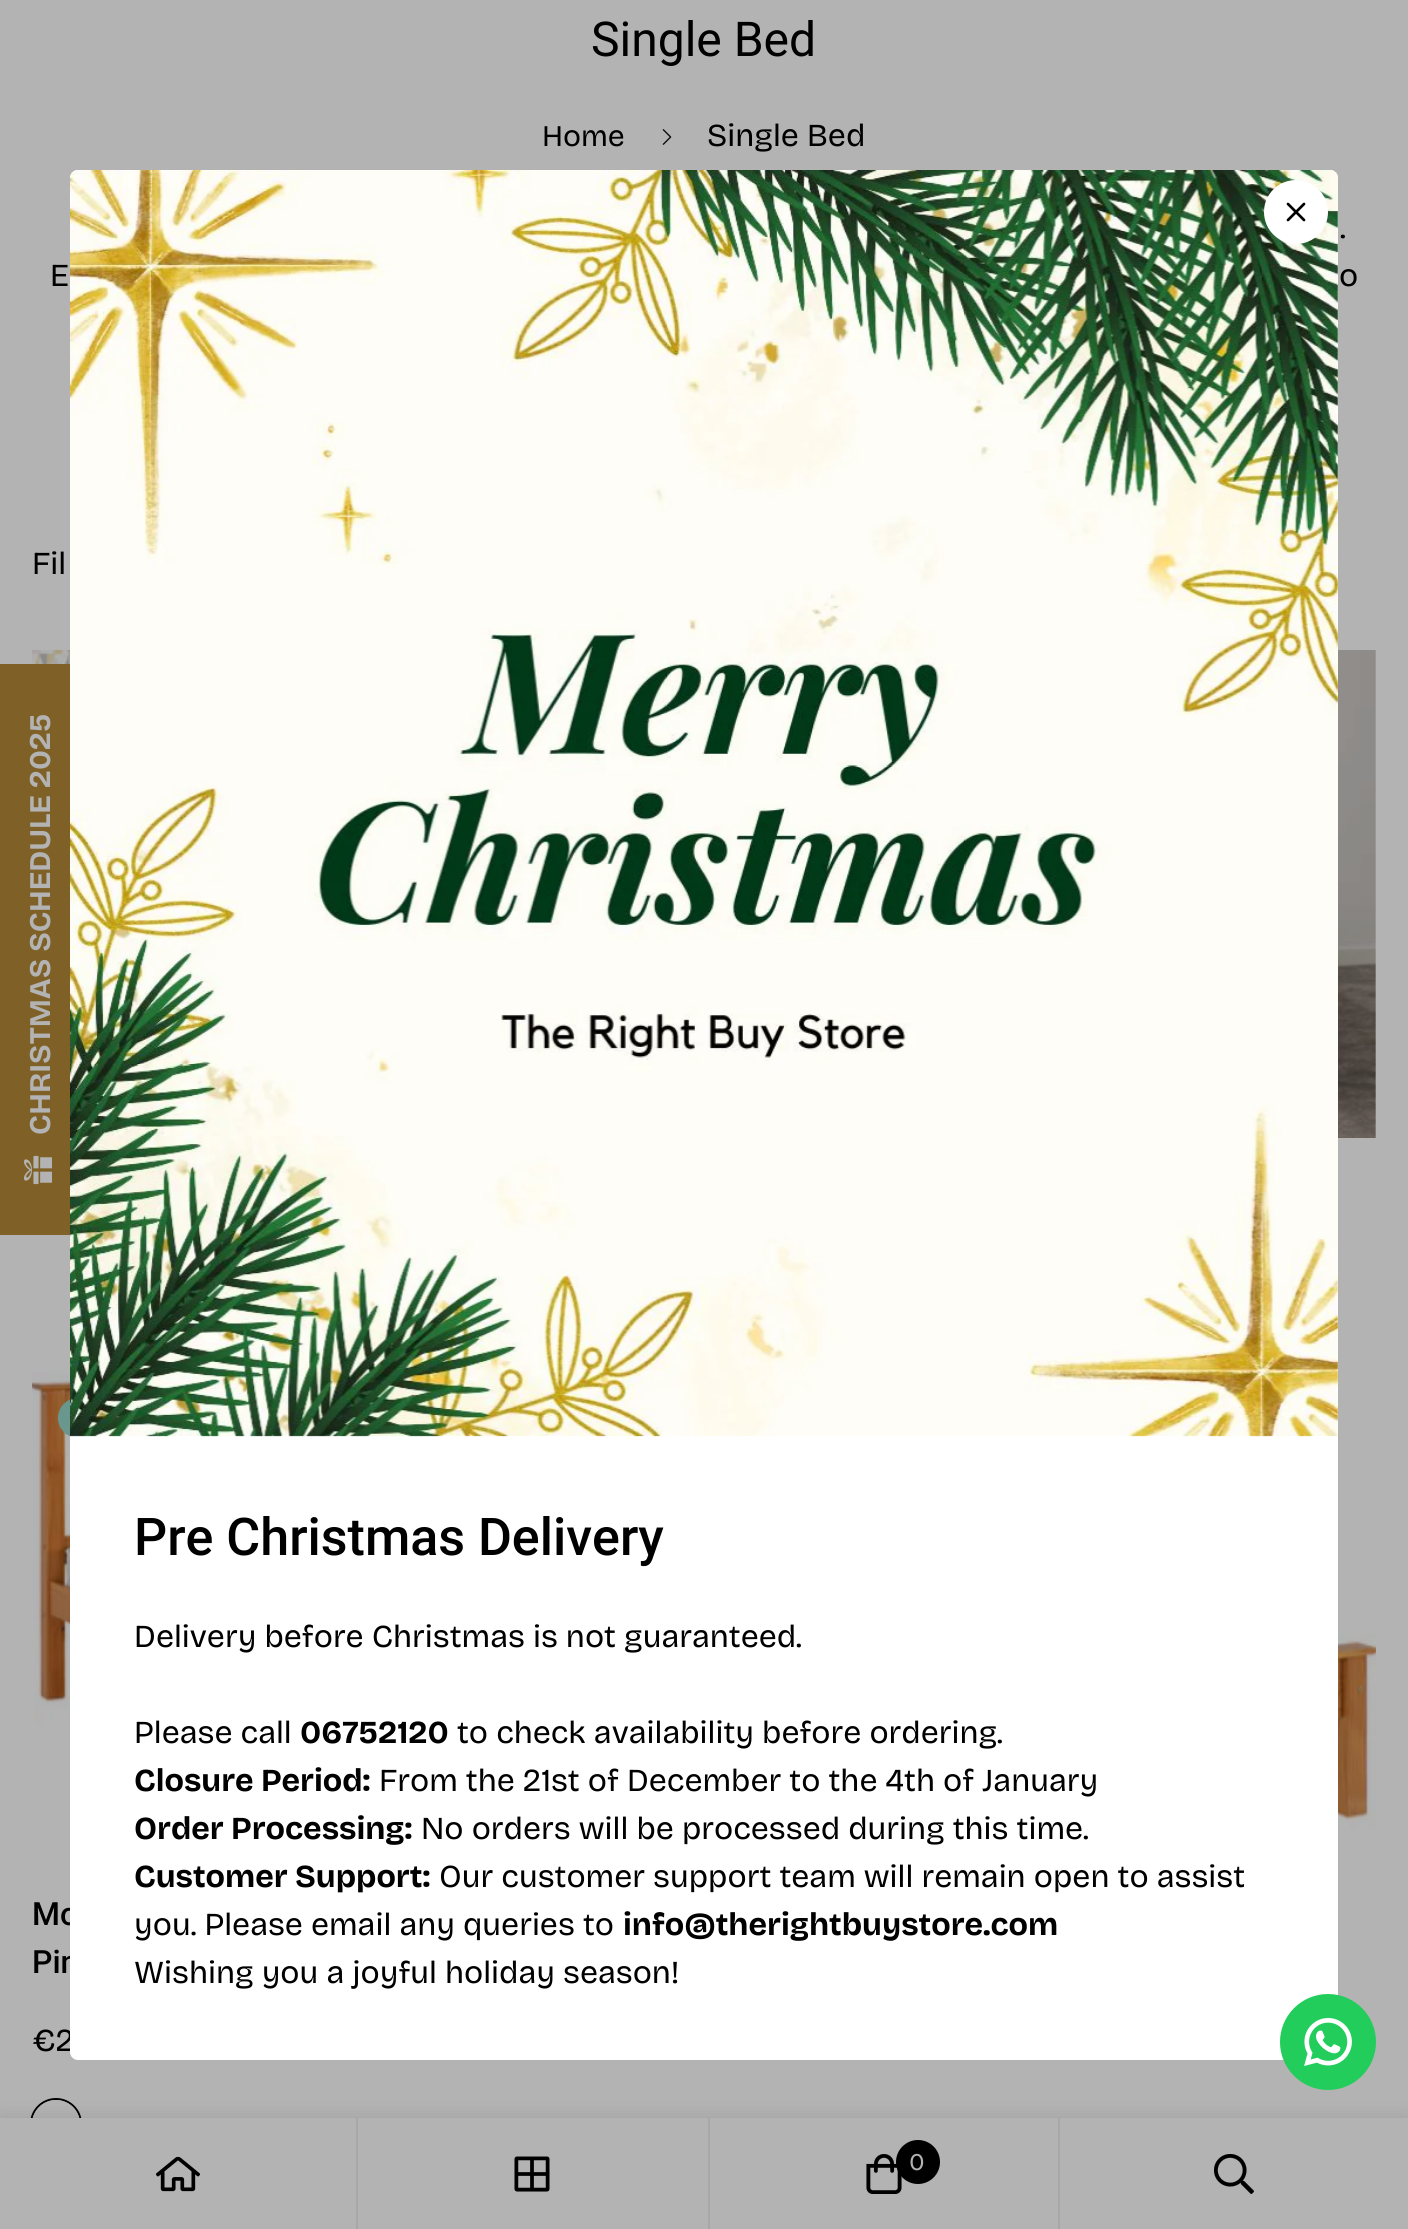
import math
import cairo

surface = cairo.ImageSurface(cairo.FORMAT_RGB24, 1408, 2229)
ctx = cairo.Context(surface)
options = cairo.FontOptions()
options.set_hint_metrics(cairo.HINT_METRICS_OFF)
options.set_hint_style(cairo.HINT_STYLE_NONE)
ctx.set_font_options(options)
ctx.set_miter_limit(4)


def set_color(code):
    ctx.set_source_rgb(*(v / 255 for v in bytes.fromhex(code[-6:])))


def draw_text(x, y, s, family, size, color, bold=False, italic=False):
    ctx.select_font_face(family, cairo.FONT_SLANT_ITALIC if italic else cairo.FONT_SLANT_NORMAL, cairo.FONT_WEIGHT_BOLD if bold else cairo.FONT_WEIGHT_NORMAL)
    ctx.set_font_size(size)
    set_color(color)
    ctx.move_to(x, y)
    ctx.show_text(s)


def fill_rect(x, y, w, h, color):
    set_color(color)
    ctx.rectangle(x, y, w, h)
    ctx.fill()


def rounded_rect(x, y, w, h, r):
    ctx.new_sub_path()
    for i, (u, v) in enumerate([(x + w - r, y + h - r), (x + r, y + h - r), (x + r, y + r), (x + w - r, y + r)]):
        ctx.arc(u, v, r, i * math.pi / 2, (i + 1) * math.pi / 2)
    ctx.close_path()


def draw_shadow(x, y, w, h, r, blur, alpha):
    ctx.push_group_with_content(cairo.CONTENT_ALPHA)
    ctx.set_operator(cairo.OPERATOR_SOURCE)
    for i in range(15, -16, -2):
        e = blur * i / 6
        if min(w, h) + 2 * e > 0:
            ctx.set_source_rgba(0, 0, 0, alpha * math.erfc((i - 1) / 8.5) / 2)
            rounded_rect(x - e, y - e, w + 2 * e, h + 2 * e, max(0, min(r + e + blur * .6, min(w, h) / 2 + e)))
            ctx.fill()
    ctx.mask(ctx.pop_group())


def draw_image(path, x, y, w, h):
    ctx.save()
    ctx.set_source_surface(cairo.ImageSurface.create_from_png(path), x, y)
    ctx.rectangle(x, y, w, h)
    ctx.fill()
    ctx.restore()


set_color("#b3b3b3")
ctx.paint()
draw_text(591, 56, "Single Bed", "Roboto", 48, "#000000")
draw_text(542, 146, "Home", "Bricolage Grotesque", 30, "#000000")
draw_image("assets/img1.png", 662, 129, 10, 16)
draw_text(707, 146, "Single Bed", "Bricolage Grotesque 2", 32, "#000000")
draw_text(1340, 238, ".", "Bricolage Grotesque 2", 32, "#000000")
draw_text(50, 286, "E", "Bricolage Grotesque 2", 32, "#000000")
draw_text(1339, 286, "o", "Bricolage Grotesque 2", 32, "#000000")
draw_text(32, 574, "Fil", "Bricolage Grotesque 2", 32, "#000000")
draw_image("assets/img2.png", 32, 650, 38, 14)
draw_image("assets/img3.png", 1338, 650, 38, 488)
draw_image("assets/img4.png", 1338, 1372, 38, 498)
draw_image("assets/img5.png", 32, 1372, 38, 496)
set_color("#6a978d")
rounded_rect(58, 1398, 116, 40, 20)
ctx.fill()
draw_text(32, 1925, "Mo", "Roboto Medium", 32, "#000000")
draw_text(32, 1973, "Pin", "Roboto Medium", 32, "#000000")
draw_text(32, 2051, "€2", "Bricolage Grotesque 2", 32, "#000000")
ctx.new_path()
ctx.arc(56, 2124, 25, 0, 2 * math.pi)
ctx.stroke()
ctx.arc(56, 2124, 20, 0, 2 * math.pi)
set_color("#b3b3b3")
ctx.set_line_width(8)
ctx.stroke()
set_color("#7f6128")
ctx.new_path()
ctx.move_to(0, 1235)
ctx.line_to(0, 664)
ctx.line_to(70, 664)
ctx.curve_to(76, 664, 80, 668, 80, 674)
ctx.line_to(80, 1225)
ctx.curve_to(80, 1231, 76, 1235, 70, 1235)
ctx.close_path()
ctx.fill()
ctx.save()
ctx.translate(50, 1135)
ctx.rotate(-90 * math.pi / 180)
draw_text(0, 0, "CHRISTMAS SCHEDULE 2025", "Bricolage Grotesque", 30, "#b3b3b3", bold=True)
ctx.restore()
draw_image("assets/img6.png", 23, 1155, 29, 30)
set_color("#ffffff")
rounded_rect(70, 170, 1268, 1890, 8)
ctx.fill()
draw_image("assets/img7.png", 70, 170, 1268, 1267)
ctx.arc(1296, 212, 32, 0, 2 * math.pi)
ctx.fill()
ctx.new_path()
ctx.move_to(1288, 220)
ctx.line_to(1304, 204)
ctx.move_to(1288, 204)
ctx.line_to(1304, 220)
set_color("#000000")
ctx.set_line_width(2.7)
ctx.set_line_cap(cairo.LINE_CAP_ROUND)
ctx.set_line_join(cairo.LINE_JOIN_ROUND)
ctx.stroke()
draw_text(134, 1555, "Pre Christmas Delivery", "Roboto Medium", 52, "#000000")
draw_text(134, 1647, "Delivery before Christmas is not guaranteed.", "Bricolage Grotesque 2", 32, "#000000")
draw_text(134, 1743, "Please call", "Bricolage Grotesque 2", 32, "#000000")
draw_text(300, 1743, "06752120", "Bricolage Grotesque 2", 32, "#000000", bold=True)
draw_text(457, 1743, "to check availability before ordering.", "Bricolage Grotesque 2", 32, "#000000")
draw_text(134, 1791, "Closure Period:", "Bricolage Grotesque 2", 32, "#000000", bold=True)
draw_text(379, 1791, "From the 21st of December to the 4th of January", "Bricolage Grotesque 2", 32, "#000000")
draw_text(134, 1839, "Order Processing:", "Bricolage Grotesque 2", 32, "#000000", bold=True)
draw_text(421, 1839, "No orders will be processed during this time.", "Bricolage Grotesque 2", 32, "#000000")
draw_text(134, 1887, "Customer Support:", "Bricolage Grotesque 2", 32, "#000000", bold=True)
draw_text(439, 1887, "Our customer support team will remain open to assist", "Bricolage Grotesque 2", 32, "#000000")
draw_text(134, 1935, "you. Please email any queries to", "Bricolage Grotesque 2", 32, "#000000")
draw_text(623, 1935, "info@therightbuystore.com", "Bricolage Grotesque 2", 32, "#000000", bold=True)
draw_text(134, 1983, "Wishing you a joyful holiday season!", "Bricolage Grotesque 2", 32, "#000000")
set_color("#000000")
draw_shadow(0, 2118, 1408, 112, 0, 10, 0.11)
set_color("#22cd5b")
ctx.arc(1328, 2042, 48, 0, 2 * math.pi)
ctx.fill()
draw_image("assets/img8.png", 1304, 2018, 48, 48)
fill_rect(0, 2118, 1408, 111, "#b3b3b3")
fill_rect(356, 2118, 2, 111, "#a7a7a7")
draw_image("assets/img9.png", 156, 2156, 45, 36)
fill_rect(708, 2118, 2, 111, "#a7a7a7")
draw_image("assets/img10.png", 514, 2156, 36, 36)
fill_rect(1058, 2118, 2, 111, "#a7a7a7")
draw_image("assets/img11.png", 866, 2154, 36, 40)
set_color("#000000")
ctx.arc(918, 2162, 22, 0, 2 * math.pi)
ctx.fill()
draw_text(909, 2170, "0", "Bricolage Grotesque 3", 24, "#b3b3b3")
draw_image("assets/img12.png", 1214, 2154, 40, 40)
surface.write_to_png("output.png")
